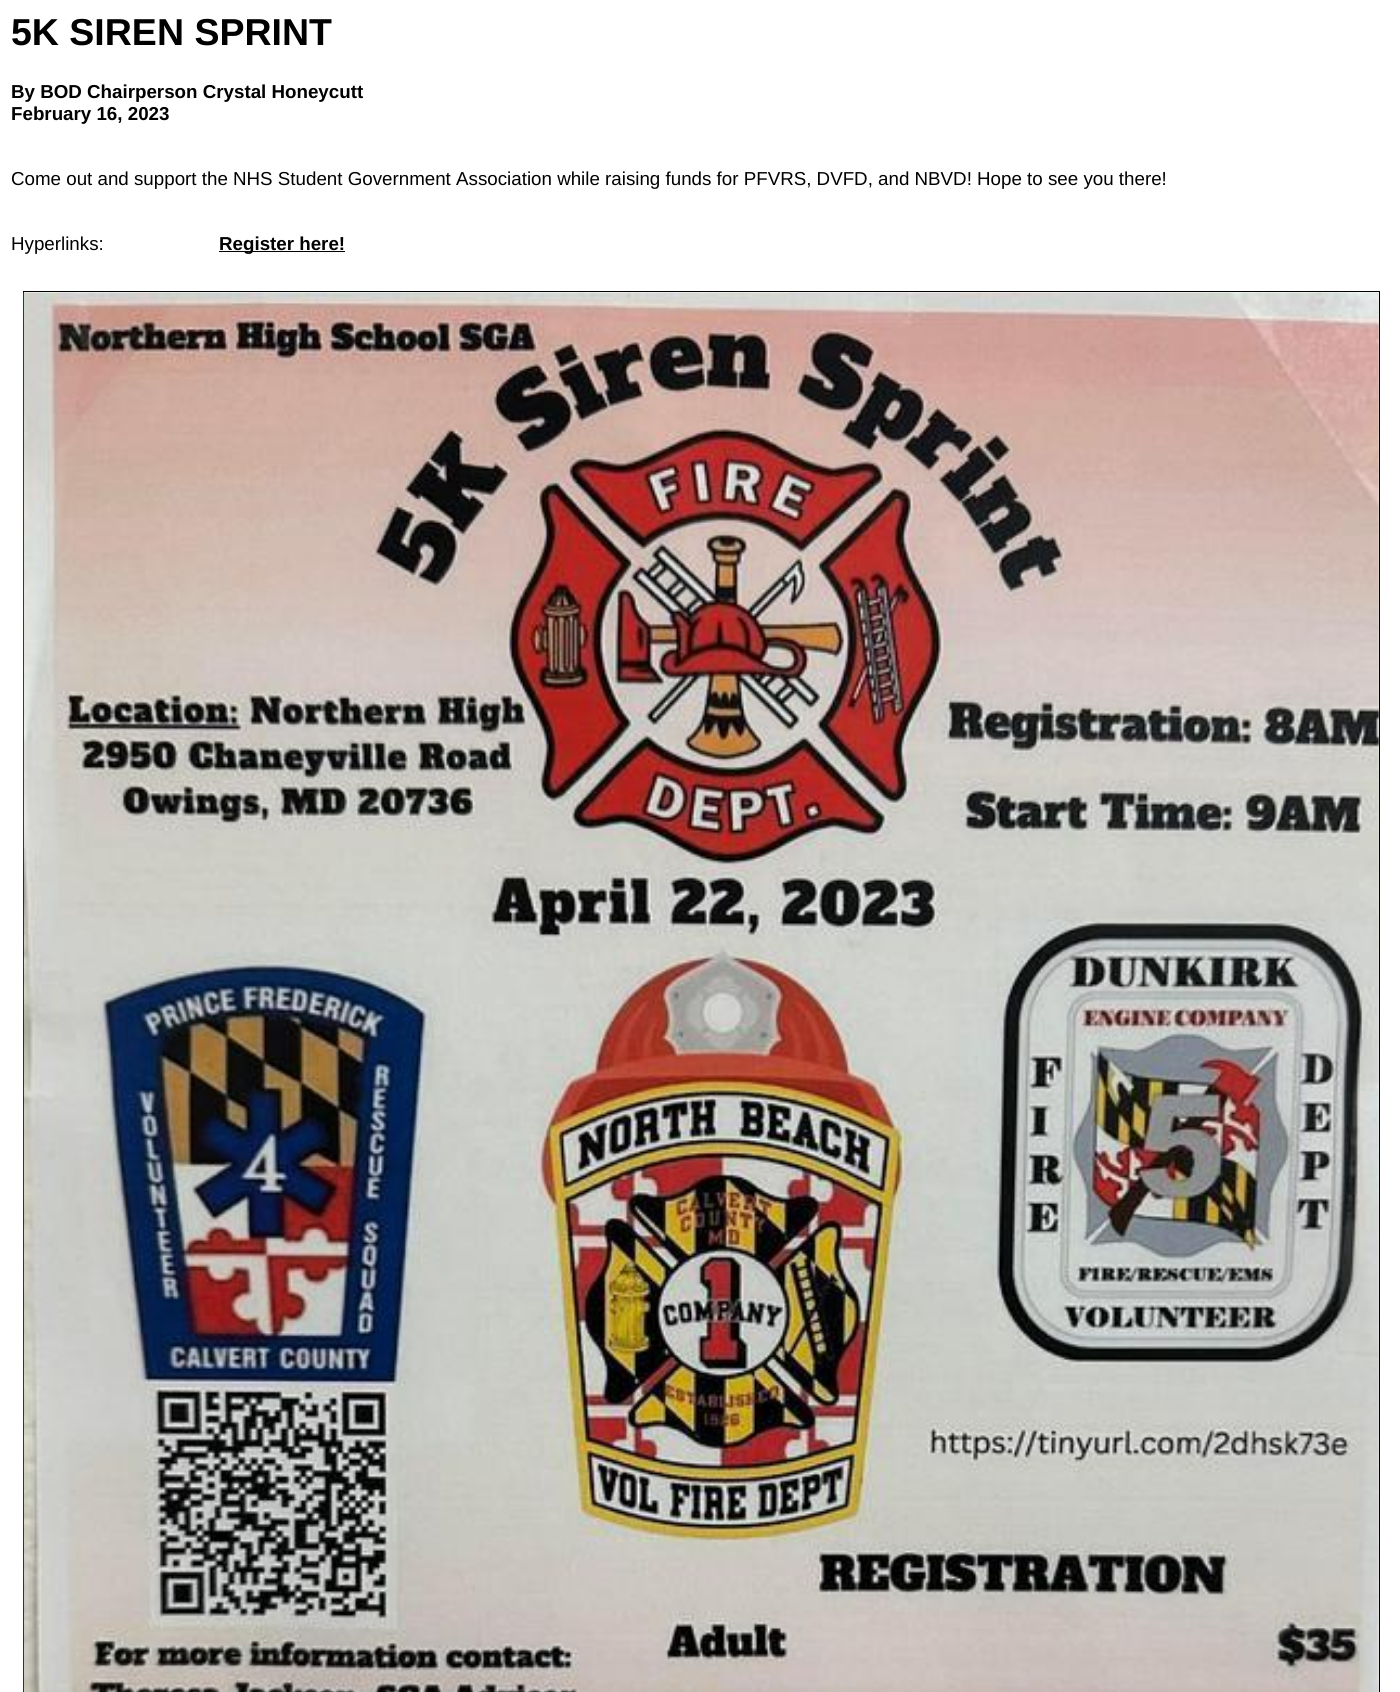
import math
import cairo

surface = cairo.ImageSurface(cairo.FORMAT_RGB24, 1400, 1692)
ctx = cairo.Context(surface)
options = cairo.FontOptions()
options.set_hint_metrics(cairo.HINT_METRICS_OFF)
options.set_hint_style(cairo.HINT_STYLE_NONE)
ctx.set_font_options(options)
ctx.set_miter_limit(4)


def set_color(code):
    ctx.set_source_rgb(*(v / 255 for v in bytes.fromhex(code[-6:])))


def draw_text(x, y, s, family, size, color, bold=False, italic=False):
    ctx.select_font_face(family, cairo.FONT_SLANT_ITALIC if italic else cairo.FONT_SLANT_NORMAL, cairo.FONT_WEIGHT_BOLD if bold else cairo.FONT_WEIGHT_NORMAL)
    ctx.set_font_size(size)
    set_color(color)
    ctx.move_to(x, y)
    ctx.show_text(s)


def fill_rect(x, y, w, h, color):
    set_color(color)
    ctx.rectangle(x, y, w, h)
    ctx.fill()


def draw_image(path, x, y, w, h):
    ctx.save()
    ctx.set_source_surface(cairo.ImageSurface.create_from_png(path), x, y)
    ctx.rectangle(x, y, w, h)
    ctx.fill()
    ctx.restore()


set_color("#ffffff")
ctx.paint()
draw_text(11, 45, "5K SIREN SPRINT", "Liberation Sans", 37.5, "#000000", bold=True)
draw_text(11, 98, "By BOD Chairperson Crystal Honeycutt", "Liberation Sans", 18.75, "#000000", bold=True)
draw_text(11, 120, "February 16, 2023", "Liberation Sans", 18.75, "#000000", bold=True)
draw_text(11, 185, "Come out and support the NHS Student Government Association while raising funds for PFVRS, DVFD, and NBVD! Hope to see you there!", "Liberation Sans", 18.75, "#000000")
draw_text(11, 250, "Hyperlinks:", "Liberation Sans", 18.75, "#000000")
fill_rect(219, 251, 126, 1, "#000000")
draw_text(219, 250, "Register here!", "Liberation Sans", 18.75, "#000000", bold=True)
ctx.rectangle(23.5, 291.5, 1356, 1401)
ctx.set_line_width(1)
ctx.stroke()
draw_image("assets/img1.png", 23, 292, 1356, 1400)
surface.write_to_png("output.png")
